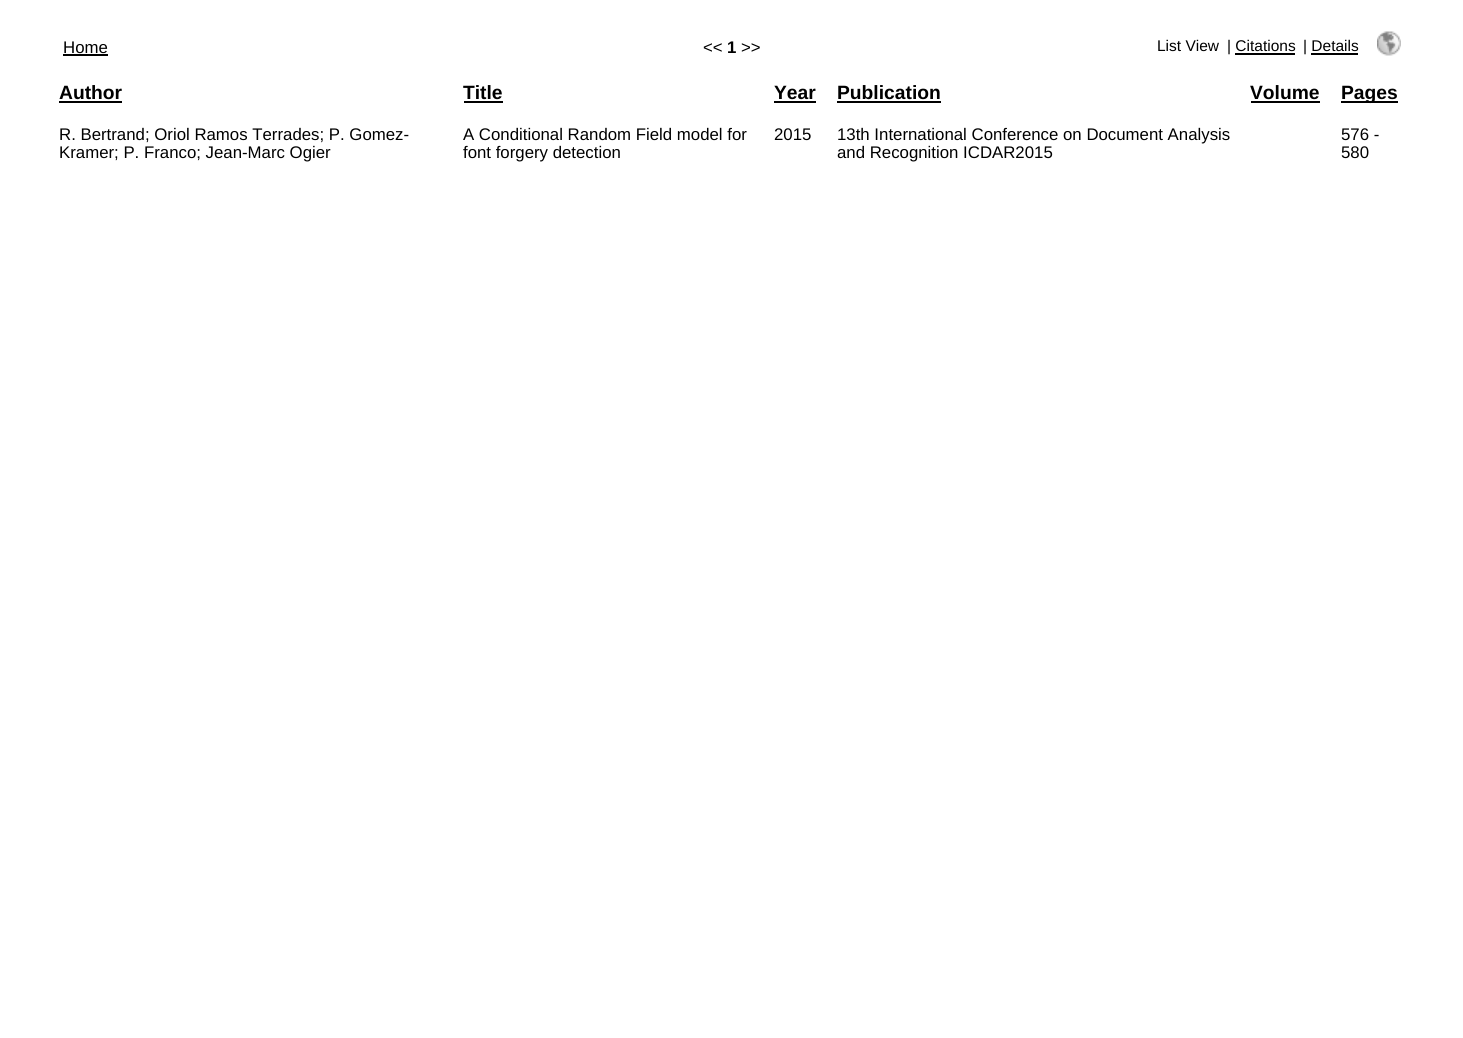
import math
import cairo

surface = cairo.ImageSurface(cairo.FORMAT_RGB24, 1463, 1038)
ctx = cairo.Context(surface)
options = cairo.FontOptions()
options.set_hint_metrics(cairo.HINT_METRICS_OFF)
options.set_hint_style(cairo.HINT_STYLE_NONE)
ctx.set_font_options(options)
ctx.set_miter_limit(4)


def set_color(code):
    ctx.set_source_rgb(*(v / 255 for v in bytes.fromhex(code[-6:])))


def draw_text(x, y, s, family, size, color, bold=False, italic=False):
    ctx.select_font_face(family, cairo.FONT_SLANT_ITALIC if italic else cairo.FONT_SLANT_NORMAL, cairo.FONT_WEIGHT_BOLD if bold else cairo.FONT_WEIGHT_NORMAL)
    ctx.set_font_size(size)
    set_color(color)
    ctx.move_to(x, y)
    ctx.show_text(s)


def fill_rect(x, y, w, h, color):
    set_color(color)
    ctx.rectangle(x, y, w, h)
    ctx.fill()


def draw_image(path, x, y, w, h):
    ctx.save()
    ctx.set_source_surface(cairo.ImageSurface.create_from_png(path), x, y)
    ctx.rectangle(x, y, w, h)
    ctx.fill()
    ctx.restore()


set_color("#ffffff")
ctx.paint()
draw_text(63, 53, "Home", "Liberation Sans", 16.8, "#000000")
fill_rect(63, 54, 45, 2, "#000000")
draw_text(703, 53, "<<", "Liberation Sans", 16.8, "#000000")
draw_text(727, 53, "1", "Liberation Sans", 16.8, "#000000", bold=True)
draw_text(741, 53, ">>", "Liberation Sans", 16.8, "#000000")
draw_text(1157, 51, "List View", "Liberation Sans", 15.5, "#000000")
draw_text(1227, 51, "| Citations", "Liberation Sans", 15.5, "#000000")
fill_rect(1235, 53, 60, 2, "#000000")
draw_text(1303, 51, "| Details", "Liberation Sans", 15.5, "#000000")
fill_rect(1311, 53, 47, 2, "#000000")
draw_image("assets/img1.png", 1377, 31, 24, 25)
draw_text(59, 99, "Author", "Liberation Sans", 19.25, "#000000", bold=True)
fill_rect(59, 101, 63, 2, "#000000")
draw_text(463, 99, "Title", "Liberation Sans", 19.25, "#000000", bold=True)
fill_rect(464, 101, 39, 2, "#000000")
draw_text(774, 99, "Year", "Liberation Sans", 19.25, "#000000", bold=True)
fill_rect(774, 101, 42, 2, "#000000")
draw_text(837, 99, "Publication", "Liberation Sans", 19.25, "#000000", bold=True)
fill_rect(837, 101, 104, 2, "#000000")
draw_text(1250, 99, "Volume", "Liberation Sans", 19.25, "#000000", bold=True)
fill_rect(1251, 101, 69, 2, "#000000")
fill_rect(1341, 101, 57, 2, "#000000")
draw_text(1341, 99, "Pages", "Liberation Sans", 19.25, "#000000", bold=True)
draw_text(59, 140, "R. Bertrand; Oriol Ramos Terrades; P. Gomez-", "Liberation Sans", 16.8, "#000000")
draw_text(59, 158, "Kramer; P. Franco; Jean-Marc Ogier", "Liberation Sans", 16.8, "#000000")
draw_text(463, 140, "A Conditional Random Field model for", "Liberation Sans", 16.8, "#000000")
draw_text(463, 158, "font forgery detection", "Liberation Sans", 16.8, "#000000")
draw_text(774, 140, "2015", "Liberation Sans", 16.8, "#000000")
draw_text(837, 140, "13th International Conference on Document Analysis", "Liberation Sans", 16.8, "#000000")
draw_text(837, 158, "and Recognition ICDAR2015", "Liberation Sans", 16.8, "#000000")
draw_text(1341, 140, "576 -", "Liberation Sans", 16.8, "#000000")
draw_text(1341, 158, "580", "Liberation Sans", 16.8, "#000000")
surface.write_to_png("output.png")
